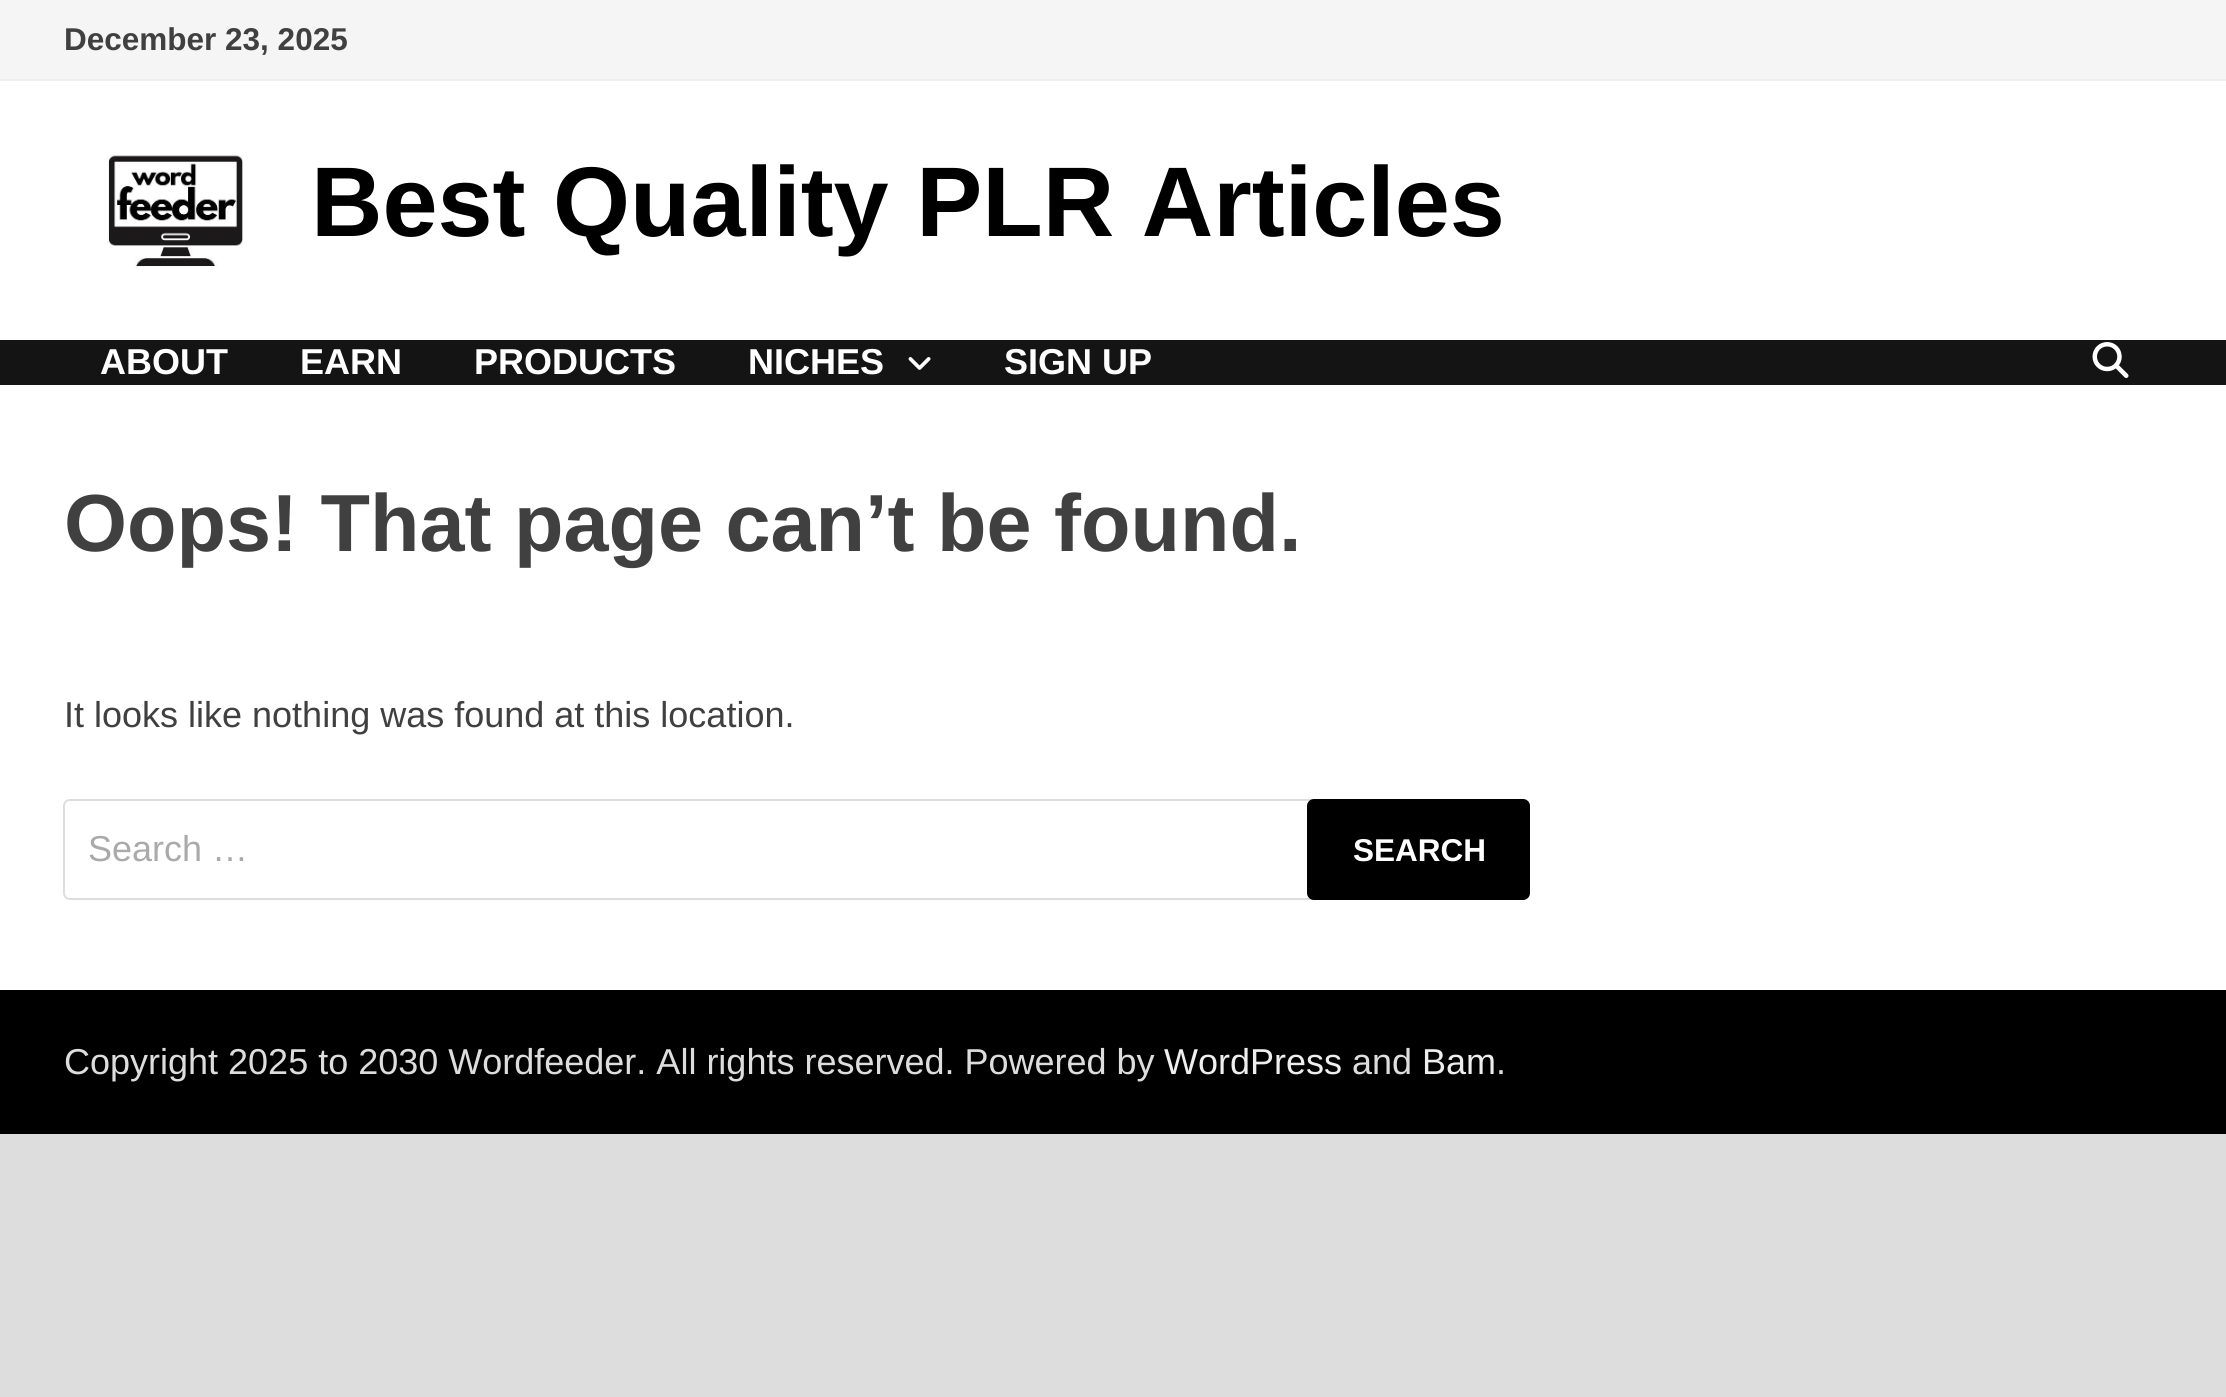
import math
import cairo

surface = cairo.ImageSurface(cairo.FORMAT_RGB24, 2226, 1397)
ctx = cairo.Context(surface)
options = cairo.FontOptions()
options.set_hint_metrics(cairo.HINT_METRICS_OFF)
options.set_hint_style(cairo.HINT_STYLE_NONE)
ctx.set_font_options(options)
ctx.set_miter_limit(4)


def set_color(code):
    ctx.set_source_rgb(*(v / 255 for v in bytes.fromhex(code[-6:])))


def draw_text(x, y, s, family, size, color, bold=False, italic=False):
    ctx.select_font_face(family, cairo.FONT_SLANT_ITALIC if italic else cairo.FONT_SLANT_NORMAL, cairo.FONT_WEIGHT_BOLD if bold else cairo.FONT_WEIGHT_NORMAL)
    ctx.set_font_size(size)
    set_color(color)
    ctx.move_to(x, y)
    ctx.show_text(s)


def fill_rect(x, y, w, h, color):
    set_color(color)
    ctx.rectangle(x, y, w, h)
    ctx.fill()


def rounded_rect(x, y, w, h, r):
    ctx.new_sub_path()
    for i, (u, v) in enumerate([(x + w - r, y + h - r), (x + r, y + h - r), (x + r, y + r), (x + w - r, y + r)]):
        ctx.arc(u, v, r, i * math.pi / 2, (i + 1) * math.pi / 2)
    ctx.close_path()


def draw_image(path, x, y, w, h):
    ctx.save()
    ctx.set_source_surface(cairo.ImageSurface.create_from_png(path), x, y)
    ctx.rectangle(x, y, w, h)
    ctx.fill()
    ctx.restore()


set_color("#dddddd")
ctx.paint()
fill_rect(0, 81, 2226, 909, "#ffffff")
fill_rect(0, 0, 2226, 79, "#f5f5f5")
fill_rect(0, 79, 2226, 2, "#eeeeee")
draw_text(64, 50, "December 23, 2025", "Liberation Sans", 31.5, "#404040", bold=True)
draw_image("assets/img1.png", 107, 155, 136, 112)
draw_text(311, 236, "Best Quality PLR Articles", "Liberation Sans", 99, "#000000", bold=True)
fill_rect(0, 340, 2226, 45, "#141414")
draw_text(100, 374, "ABOUT", "Liberation Sans", 36, "#ffffff", bold=True)
draw_text(300, 374, "EARN", "Liberation Sans", 36, "#ffffff", bold=True)
draw_text(474, 374, "PRODUCTS", "Liberation Sans", 36, "#ffffff", bold=True)
draw_text(748, 374, "NICHES", "Liberation Sans", 36, "#ffffff", bold=True)
draw_image("assets/img2.png", 908, 357, 23, 13)
draw_text(1004, 374, "SIGN UP", "Liberation Sans", 36, "#ffffff", bold=True)
draw_image("assets/img3.png", 2092, 342, 37, 36)
draw_text(64, 551, "Oops! That page can’t be found.", "Liberation Sans", 81, "#404040", bold=True)
draw_text(64, 727, "It looks like nothing was found at this location.", "Liberation Sans", 36, "#404040")
rounded_rect(64, 800, 1465, 99, 6)
set_color("#dddddd")
ctx.stroke()
draw_text(88, 861, "Search …", "Liberation Sans", 36, "#aaaaaa")
set_color("#000000")
rounded_rect(1307, 799, 223, 101, 7)
ctx.fill()
draw_text(1353, 861, "SEARCH", "Liberation Sans", 31.5, "#ffffff", bold=True)
fill_rect(0, 990, 2226, 144, "#000000")
draw_text(64, 1074, "Copyright 2025 to 2030 Wordfeeder. All rights reserved. Powered by", "Liberation Sans", 36, "#dddddd")
draw_text(1164, 1074, "WordPress", "Liberation Sans", 36, "#eeeeee")
draw_text(1352, 1074, "and", "Liberation Sans", 36, "#dddddd")
draw_text(1422, 1074, "Bam", "Liberation Sans", 36, "#eeeeee")
draw_text(1496, 1074, ".", "Liberation Sans", 36, "#dddddd")
surface.write_to_png("output.png")
